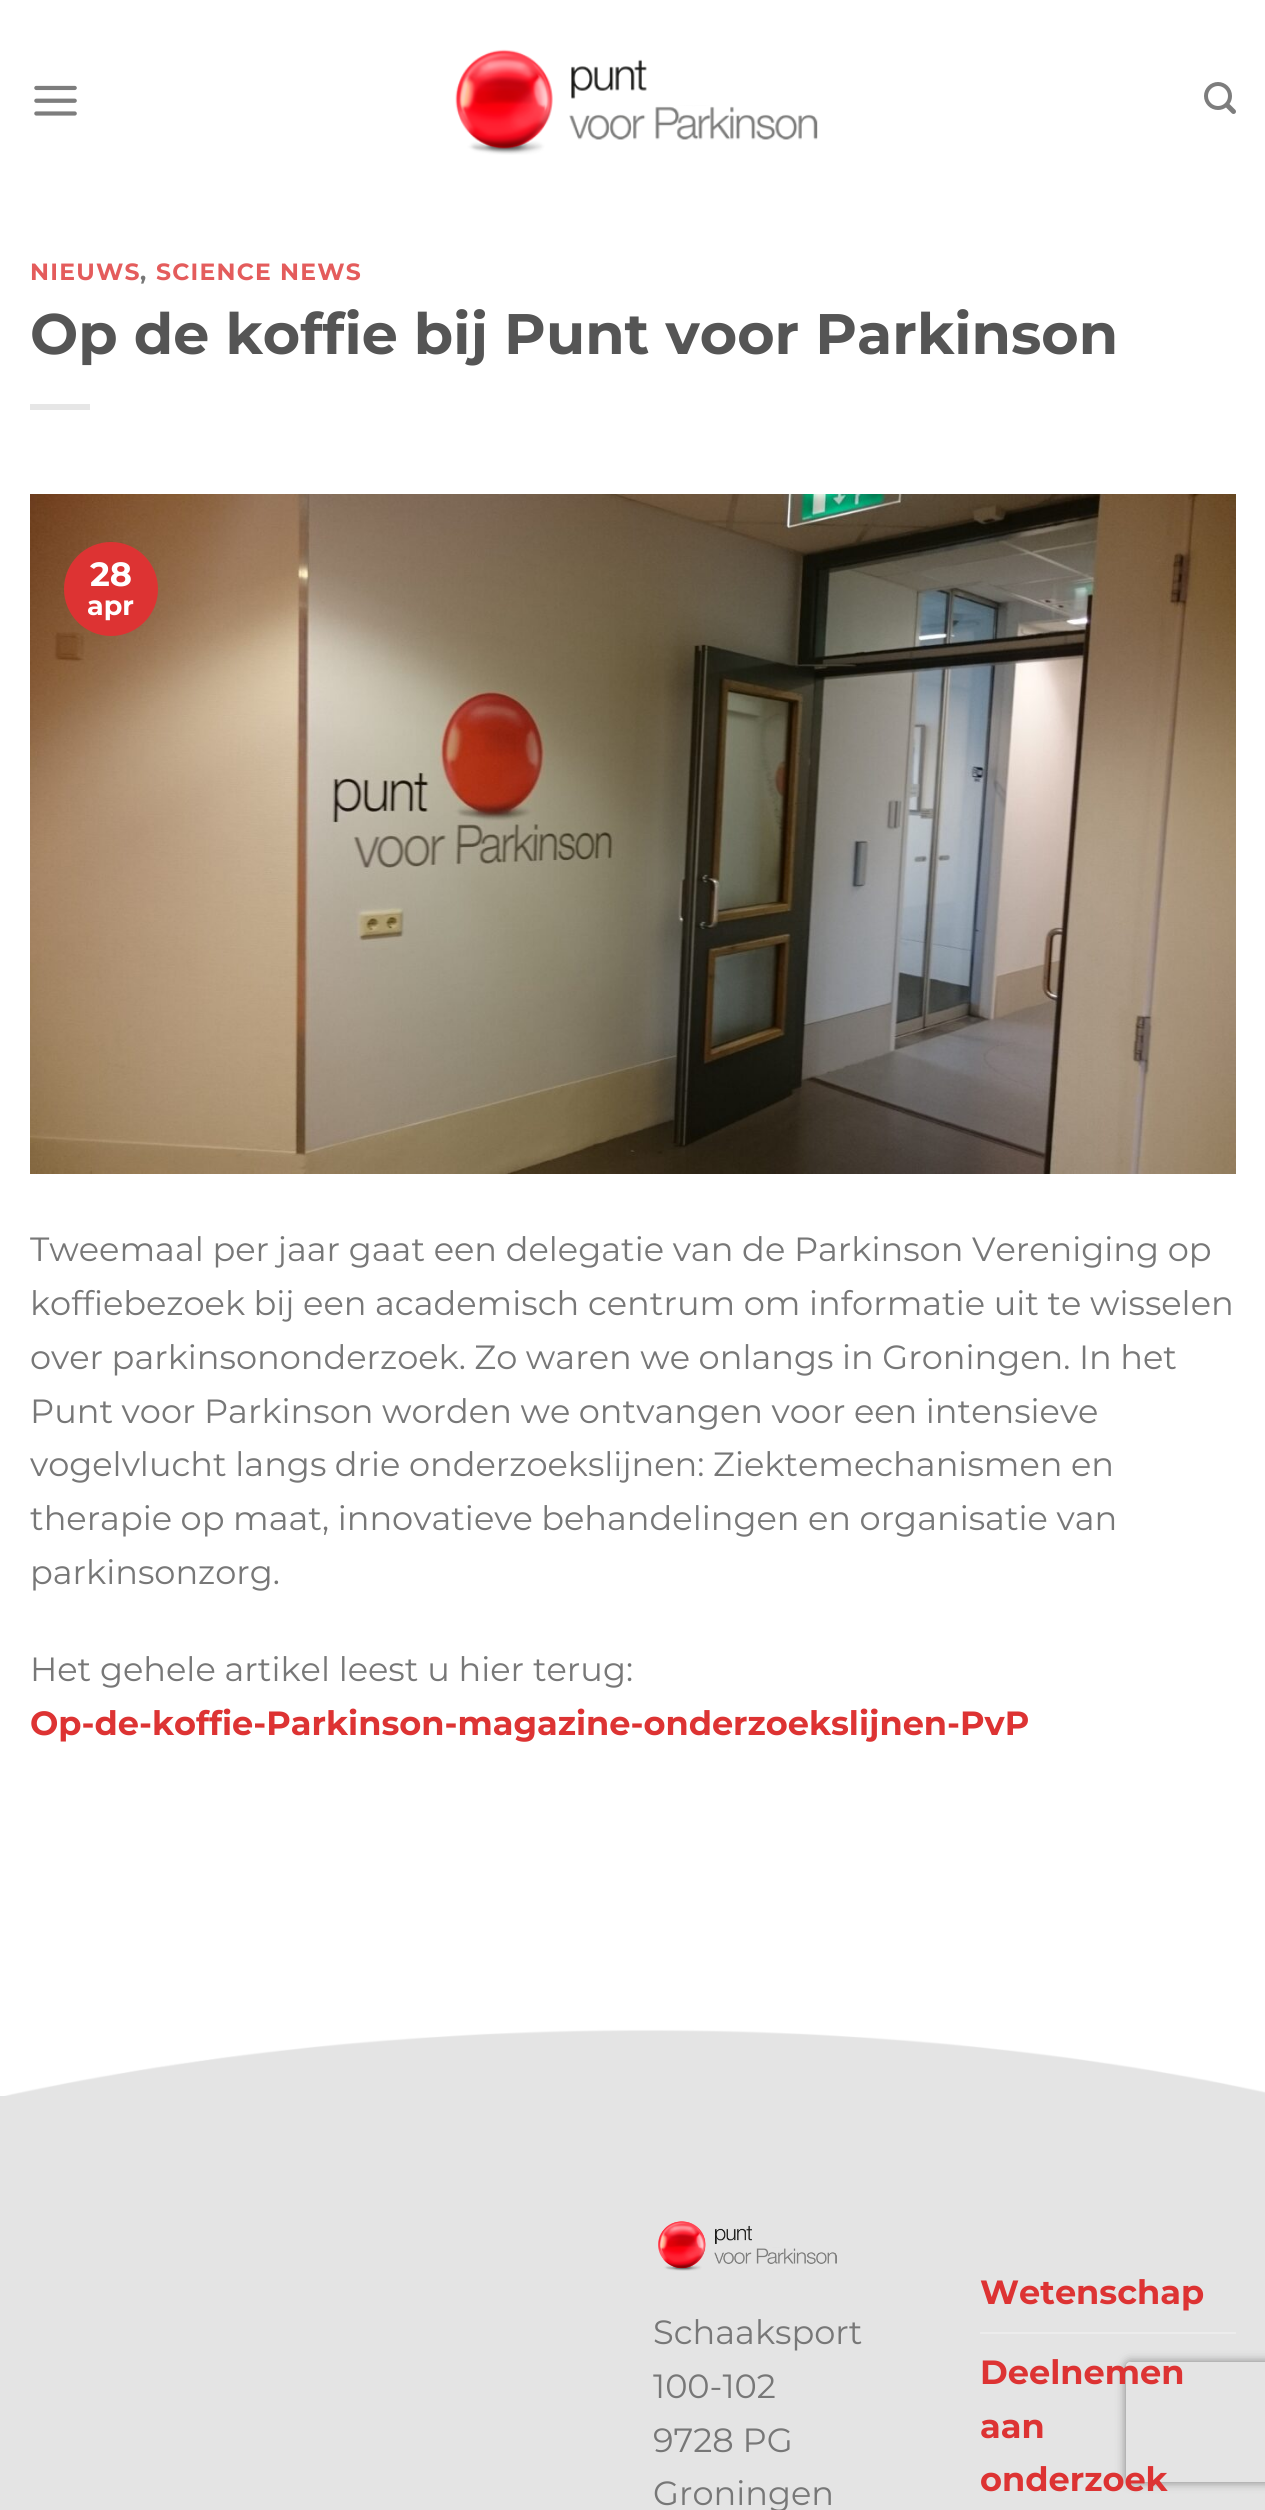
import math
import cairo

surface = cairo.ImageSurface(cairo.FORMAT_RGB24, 1265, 2510)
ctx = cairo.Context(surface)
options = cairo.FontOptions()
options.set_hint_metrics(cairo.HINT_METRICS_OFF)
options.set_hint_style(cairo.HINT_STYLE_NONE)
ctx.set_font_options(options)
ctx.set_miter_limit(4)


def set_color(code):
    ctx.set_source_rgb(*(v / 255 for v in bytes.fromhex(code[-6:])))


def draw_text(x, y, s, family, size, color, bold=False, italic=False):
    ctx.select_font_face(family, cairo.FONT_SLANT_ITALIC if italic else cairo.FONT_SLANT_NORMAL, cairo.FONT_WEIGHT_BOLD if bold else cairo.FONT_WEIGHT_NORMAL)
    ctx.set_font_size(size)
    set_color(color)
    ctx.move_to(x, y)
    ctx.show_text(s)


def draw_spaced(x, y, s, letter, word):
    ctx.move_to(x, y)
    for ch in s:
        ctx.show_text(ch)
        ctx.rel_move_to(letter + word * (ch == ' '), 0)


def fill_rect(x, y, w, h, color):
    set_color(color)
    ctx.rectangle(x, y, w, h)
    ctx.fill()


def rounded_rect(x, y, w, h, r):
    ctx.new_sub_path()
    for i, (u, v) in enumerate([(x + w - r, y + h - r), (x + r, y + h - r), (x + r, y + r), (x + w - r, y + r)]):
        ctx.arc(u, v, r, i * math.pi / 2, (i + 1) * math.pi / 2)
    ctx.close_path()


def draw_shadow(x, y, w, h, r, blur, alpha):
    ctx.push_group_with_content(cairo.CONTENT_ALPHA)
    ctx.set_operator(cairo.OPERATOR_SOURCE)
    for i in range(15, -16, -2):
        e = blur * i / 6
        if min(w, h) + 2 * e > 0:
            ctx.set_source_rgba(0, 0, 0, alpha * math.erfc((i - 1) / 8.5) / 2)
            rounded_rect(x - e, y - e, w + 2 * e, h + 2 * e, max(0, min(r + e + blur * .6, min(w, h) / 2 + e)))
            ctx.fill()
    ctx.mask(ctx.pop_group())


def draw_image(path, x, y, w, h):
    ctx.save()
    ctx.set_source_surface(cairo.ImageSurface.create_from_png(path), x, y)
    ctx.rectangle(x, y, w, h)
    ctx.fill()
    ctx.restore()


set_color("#ffffff")
ctx.paint()
draw_image("assets/img1.png", 34, 85, 43, 31)
draw_image("assets/img2.png", 455, 49, 363, 106)
draw_image("assets/img3.png", 1204, 82, 32, 32)
ctx.select_font_face("Montserrat", cairo.FONT_SLANT_NORMAL, cairo.FONT_WEIGHT_BOLD)
ctx.set_font_size(23.5)
set_color("#e45c5c")
draw_spaced(30, 280, "NIEUWS", 1.25, 0)
set_color("#777777")
draw_spaced(140, 280, ",", 1.25, 0)
set_color("#e45c5c")
draw_spaced(156, 280, "SCIENCE NEWS", 1.25, 0)
draw_text(30, 354, "Op de koffie bij Punt voor Parkinson", "Montserrat", 57.1, "#555555", bold=True)
fill_rect(30, 404, 60, 6, "#e6e6e6")
draw_image("assets/img4.png", 30, 494, 1206, 680)
set_color("#dd3333")
ctx.arc(111, 589, 47, 0, 2 * math.pi)
ctx.fill()
draw_text(90, 586, "28", "Montserrat", 33.6, "#ffffff", bold=True)
draw_text(87, 615, "apr", "Montserrat", 27, "#ffffff", bold=True)
ctx.select_font_face("Montserrat")
ctx.set_font_size(33.6)
set_color("#777777")
draw_spaced(30, 1261, "Tweemaal per jaar gaat een delegatie van de Parkinson Vereniging op", 0, -0.1)
draw_spaced(30, 1315, "koffiebezoek bij een academisch centrum om informatie uit te wisselen", 0, -0.25)
draw_spaced(30, 1369, "over parkinsononderzoek. Zo waren we onlangs in Groningen. In het", 0, -0.25)
draw_spaced(30, 1423, "Punt voor Parkinson worden we ontvangen voor een intensieve", 0, -0.25)
draw_spaced(30, 1476, "vogelvlucht langs drie onderzoekslijnen: Ziektemechanismen en", 0, -0.25)
draw_spaced(30, 1530, "therapie op maat, innovatieve behandelingen en organisatie van", 0, -0.25)
draw_text(30, 1584, "parkinsonzorg.", "Montserrat", 33.6, "#777777")
draw_text(30, 1681, "Het gehele artikel leest u hier terug:", "Montserrat", 33.6, "#777777")
draw_text(30, 1735, "Op-de-koffie-Parkinson-magazine-onderzoekslijnen-PvP", "Montserrat", 33.6, "#dd3333", bold=True)
fill_rect(0, 2029, 1265, 481, "#e4e4e4")
draw_image("assets/img5.png", 0, 2024, 1265, 72)
draw_image("assets/img6.png", 658, 2221, 179, 50)
draw_text(653, 2344, "Schaaksport", "Montserrat", 33.6, "#777777")
draw_text(653, 2398, "100-102", "Montserrat", 33.6, "#777777")
draw_text(653, 2452, "9728 PG", "Montserrat", 33.6, "#777777")
draw_text(653, 2505, "Groningen", "Montserrat", 33.6, "#777777")
draw_text(980, 2304, "Wetenschap", "Montserrat", 33.6, "#dd3333", bold=True)
fill_rect(980, 2332, 256, 2, "#ececec")
ctx.save()
ctx.set_fill_rule(cairo.FILL_RULE_EVEN_ODD)
ctx.new_path()
ctx.move_to(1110, 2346)
ctx.line_to(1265, 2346)
ctx.line_to(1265, 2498)
ctx.line_to(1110, 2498)
ctx.close_path()
ctx.move_to(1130, 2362)
ctx.line_to(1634, 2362)
ctx.curve_to(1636, 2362, 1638, 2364, 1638, 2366)
ctx.line_to(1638, 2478)
ctx.curve_to(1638, 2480, 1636, 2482, 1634, 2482)
ctx.line_to(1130, 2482)
ctx.curve_to(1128, 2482, 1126, 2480, 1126, 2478)
ctx.line_to(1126, 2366)
ctx.curve_to(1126, 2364, 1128, 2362, 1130, 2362)
ctx.close_path()
ctx.clip()
set_color("#808080")
draw_shadow(1126, 2362, 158, 120, 4, 5, 1)
ctx.restore()
draw_text(980, 2384, "Deelnemen", "Montserrat", 33.6, "#dd3333", bold=True)
draw_text(980, 2438, "aan", "Montserrat", 33.6, "#dd3333", bold=True)
draw_text(980, 2491, "onderzoek", "Montserrat", 33.6, "#dd3333", bold=True)
surface.write_to_png("output.png")
